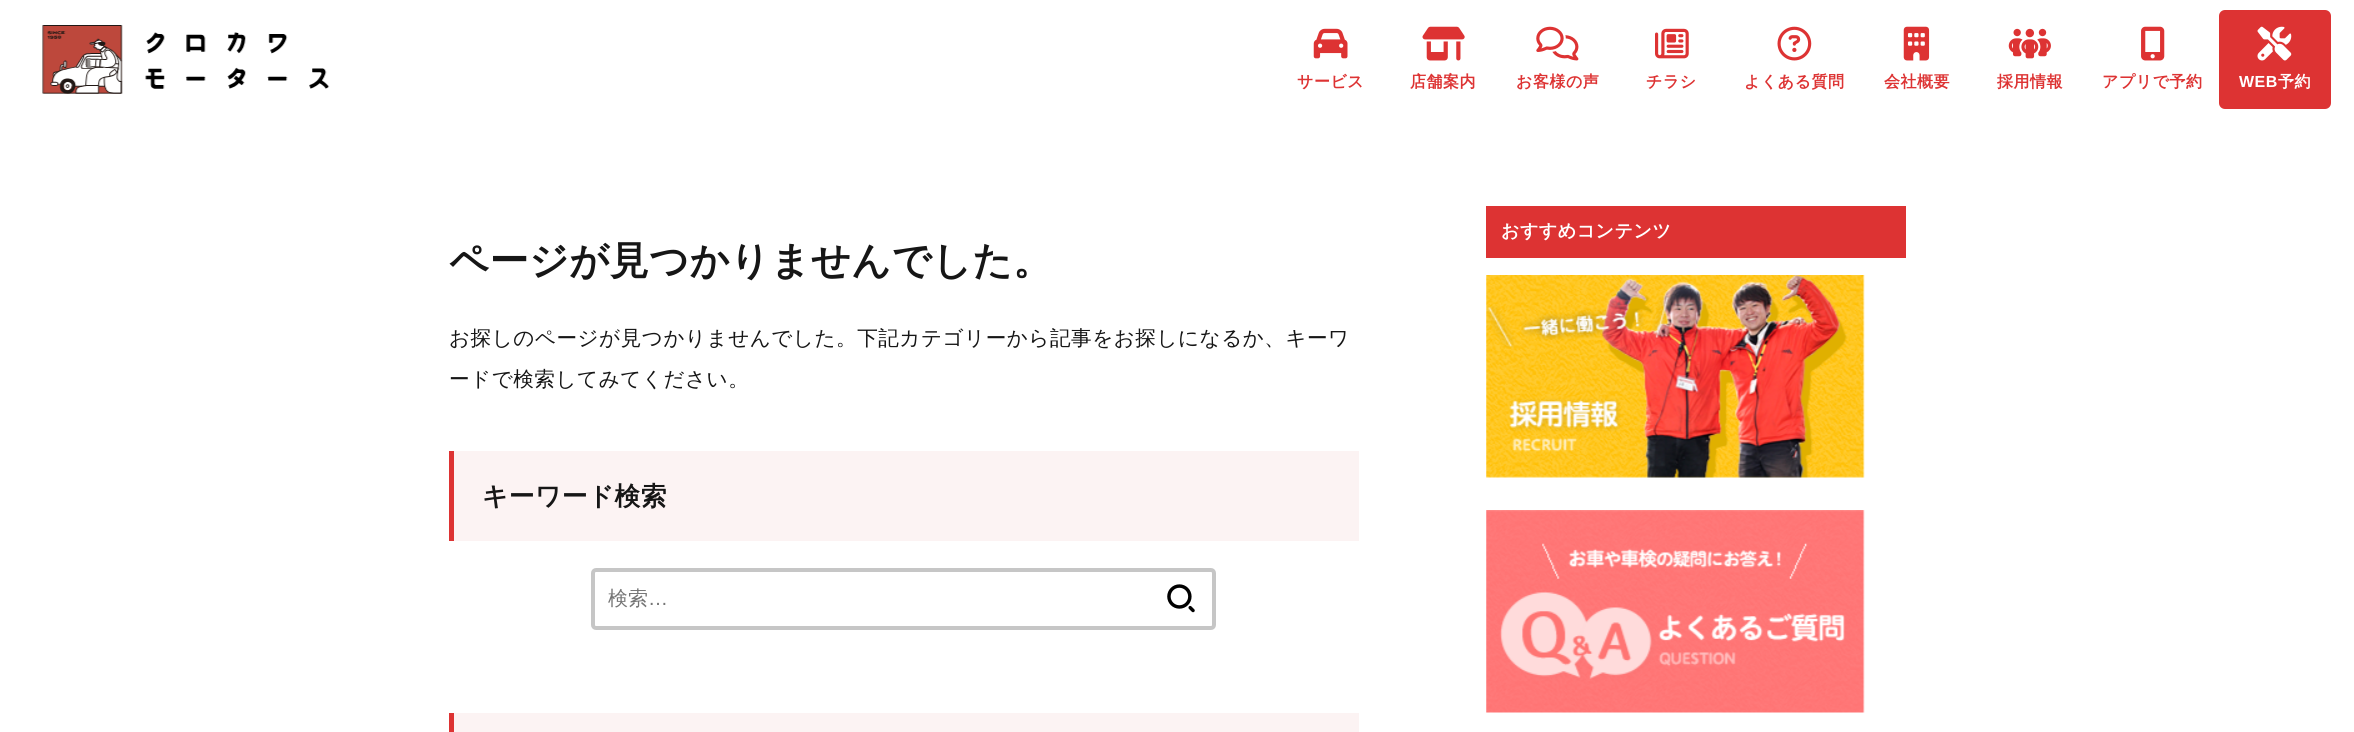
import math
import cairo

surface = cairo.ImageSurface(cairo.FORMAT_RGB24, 2354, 732)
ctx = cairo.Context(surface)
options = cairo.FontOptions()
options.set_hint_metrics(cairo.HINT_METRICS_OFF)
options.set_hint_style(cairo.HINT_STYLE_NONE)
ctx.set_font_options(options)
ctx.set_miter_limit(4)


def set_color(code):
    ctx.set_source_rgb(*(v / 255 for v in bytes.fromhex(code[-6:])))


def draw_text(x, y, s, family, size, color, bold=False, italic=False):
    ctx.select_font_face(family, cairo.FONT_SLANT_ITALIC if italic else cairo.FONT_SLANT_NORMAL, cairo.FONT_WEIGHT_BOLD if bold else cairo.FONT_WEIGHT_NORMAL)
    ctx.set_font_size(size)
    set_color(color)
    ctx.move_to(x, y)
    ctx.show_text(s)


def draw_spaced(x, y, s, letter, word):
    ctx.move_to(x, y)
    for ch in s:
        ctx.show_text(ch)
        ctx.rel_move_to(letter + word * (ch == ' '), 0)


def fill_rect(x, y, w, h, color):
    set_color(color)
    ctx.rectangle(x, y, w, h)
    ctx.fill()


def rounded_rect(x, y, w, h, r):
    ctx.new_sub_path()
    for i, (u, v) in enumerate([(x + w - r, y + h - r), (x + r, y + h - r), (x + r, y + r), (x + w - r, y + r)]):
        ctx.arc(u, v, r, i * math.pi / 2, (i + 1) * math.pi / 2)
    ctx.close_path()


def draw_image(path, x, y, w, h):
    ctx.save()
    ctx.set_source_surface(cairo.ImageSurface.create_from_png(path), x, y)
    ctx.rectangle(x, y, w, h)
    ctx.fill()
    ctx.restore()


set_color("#ffffff")
ctx.paint()
draw_image("assets/img1.png", 42, 25, 288, 69)
draw_image("assets/img2.png", 1313, 28, 35, 31)
ctx.select_font_face("WenQuanYi Zen Hei", cairo.FONT_SLANT_NORMAL, cairo.FONT_WEIGHT_BOLD)
ctx.set_font_size(16)
set_color("#dd3333")
draw_spaced(1297, 87, "サービス", 0.5, 0)
draw_image("assets/img3.png", 1422, 26, 43, 35)
draw_spaced(1410, 87, "店舗案内", 0.5, 0)
draw_image("assets/img4.png", 1536, 26, 43, 35)
draw_spaced(1516, 87, "お客様の声", 0.5, 0)
draw_image("assets/img5.png", 1655, 28, 34, 31)
draw_spaced(1646, 87, "チラシ", 0.5, 0)
draw_image("assets/img6.png", 1777, 26, 35, 35)
draw_spaced(1744, 87, "よくある質問", 0.5, 0)
draw_image("assets/img7.png", 1903, 26, 27, 35)
draw_spaced(1884, 87, "会社概要", 0.5, 0)
draw_image("assets/img8.png", 2008, 28, 43, 31)
draw_spaced(1997, 87, "採用情報", 0.5, 0)
draw_image("assets/img9.png", 2141, 26, 24, 35)
draw_spaced(2102, 87, "アプリで予約", 0.5, 0)
rounded_rect(2219, 10, 112, 99, 6)
ctx.fill()
draw_image("assets/img10.png", 2257, 26, 35, 35)
ctx.select_font_face("Liberation Sans", cairo.FONT_SLANT_NORMAL, cairo.FONT_WEIGHT_BOLD)
set_color("#ffffff")
draw_spaced(2239, 87, "WEB", 0.5, 0)
ctx.select_font_face("WenQuanYi Zen Hei", cairo.FONT_SLANT_NORMAL, cairo.FONT_WEIGHT_BOLD)
draw_spaced(2278, 87, "予約", 0.5, 0)
fill_rect(1486, 206, 420, 52, "#dd3333")
ctx.set_font_size(18.1)
set_color("#ffffff")
draw_spaced(1501, 237, "おすすめコンテンツ", 0.4, 0)
draw_image("assets/img11.png", 1486, 275, 379, 203)
draw_image("assets/img12.png", 1486, 510, 379, 203)
ctx.set_font_size(39.1)
set_color("#161616")
draw_spaced(449, 274, "ページが見つかりませんでした。", 0.4, 0)
ctx.select_font_face("WenQuanYi Zen Hei Medium")
ctx.set_font_size(20.6)
draw_spaced(449, 345, "お探しのページが見つかりませんでした。下記カテゴリーから記事をお探しになるか、キーワ", 0.5, 0)
draw_spaced(449, 386, "ードで検索してみてください。", 0.5, 0)
fill_rect(454, 451, 905, 90, "#fcf3f3")
fill_rect(449, 451, 5, 90, "#dd3333")
ctx.select_font_face("WenQuanYi Zen Hei", cairo.FONT_SLANT_NORMAL, cairo.FONT_WEIGHT_BOLD)
ctx.set_font_size(25.75)
set_color("#161616")
draw_spaced(482, 505, "キーワード検索", 0.4, 0)
rounded_rect(593, 570, 621, 58, 3)
set_color("#c6c6c6")
ctx.set_line_width(4)
ctx.stroke()
draw_text(608, 605, "検索", "WenQuanYi Zen Hei Medium", 20, "#757575")
draw_text(648, 605, "…", "Liberation Sans", 20, "#757575")
draw_image("assets/img13.png", 1167, 584, 28, 29)
fill_rect(454, 713, 905, 19, "#fcf3f3")
fill_rect(449, 713, 5, 19, "#dd3333")
surface.write_to_png("output.png")
